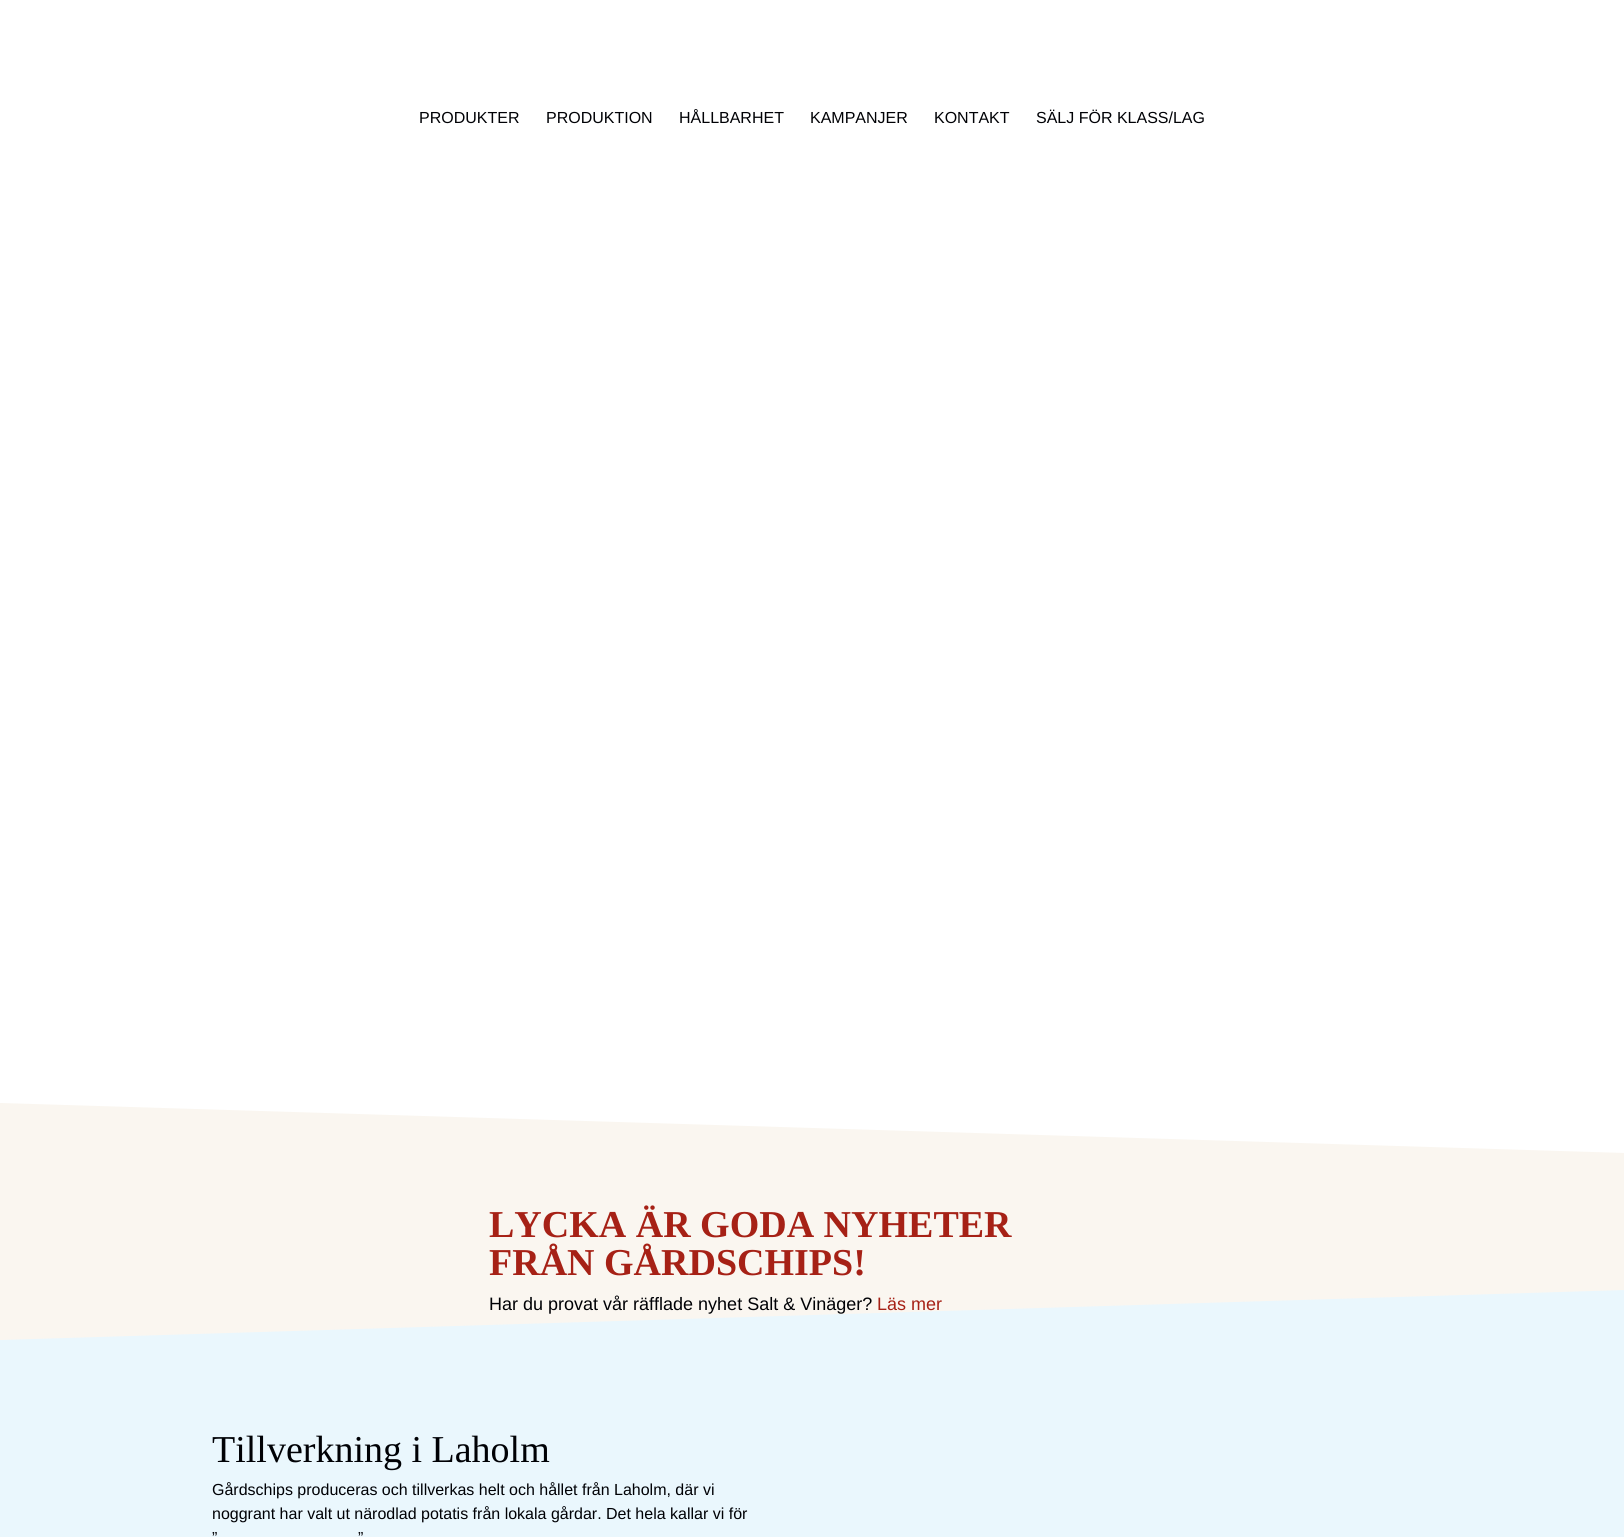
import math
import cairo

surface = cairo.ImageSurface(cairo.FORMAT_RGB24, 1624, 1537)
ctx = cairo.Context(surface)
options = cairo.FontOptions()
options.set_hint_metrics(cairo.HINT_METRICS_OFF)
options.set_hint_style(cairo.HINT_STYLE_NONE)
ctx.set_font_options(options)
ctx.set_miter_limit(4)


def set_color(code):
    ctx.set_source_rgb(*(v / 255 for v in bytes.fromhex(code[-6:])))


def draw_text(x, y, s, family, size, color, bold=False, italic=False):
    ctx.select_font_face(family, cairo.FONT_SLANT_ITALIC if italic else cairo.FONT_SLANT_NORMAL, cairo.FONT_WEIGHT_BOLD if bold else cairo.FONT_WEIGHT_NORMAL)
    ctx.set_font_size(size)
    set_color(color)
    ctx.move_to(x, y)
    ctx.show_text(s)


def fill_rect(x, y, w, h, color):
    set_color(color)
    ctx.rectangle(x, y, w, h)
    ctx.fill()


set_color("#ffffff")
ctx.paint()
draw_text(419, 123, "PRODUKTER", "Liberation Sans", 16, "#000105")
draw_text(546, 123, "PRODUKTION", "Liberation Sans", 16, "#000105")
draw_text(679, 123, "HÅLLBARHET", "Liberation Sans", 16, "#000105")
draw_text(810, 123, "KAMPANJER", "Liberation Sans", 16, "#000105")
draw_text(934, 123, "KONTAKT", "Liberation Sans", 16, "#000105")
draw_text(1036, 123, "SÄLJ FÖR KLASS/LAG", "Liberation Sans", 16, "#000105")
set_color("#faf6f0")
ctx.new_path()
ctx.move_to(0, 1103)
ctx.line_to(0, 1153)
ctx.line_to(1624, 1153)
ctx.close_path()
ctx.fill()
fill_rect(0, 1153, 1624, 187, "#faf6f0")
draw_text(489, 1237, "LYCKA ÄR GODA NYHETER", "Liberation Serif", 38, "#a62116", bold=True)
draw_text(489, 1275, "FRÅN GÅRDSCHIPS!", "Liberation Serif", 38, "#a62116", bold=True)
set_color("#eaf7fd")
ctx.new_path()
ctx.move_to(1624, 1290)
ctx.line_to(1624, 1340)
ctx.line_to(0, 1340)
ctx.close_path()
ctx.fill()
draw_text(489, 1310, "Har du provat vår räfflade nyhet Salt & Vinäger?", "Liberation Sans", 18, "#000105")
draw_text(877, 1310, "Läs mer", "Liberation Sans", 18, "#a62116")
fill_rect(0, 1340, 1624, 197, "#eaf7fd")
draw_text(212, 1462, "Tillverkning i Laholm", "Liberation Serif", 38, "#000105")
draw_text(212, 1495, "Gårdschips produceras och tillverkas helt och hållet från Laholm, där vi", "Liberation Sans", 16, "#000105")
draw_text(212, 1519, "noggrant har valt ut närodlad potatis från lokala gårdar. Det hela kallar vi för", "Liberation Sans", 16, "#000105")
draw_text(212, 1543, "”", "Liberation Sans", 16, "#000105")
draw_text(358, 1543, "”", "Liberation Sans", 16, "#000105")
surface.write_to_png("output.png")
